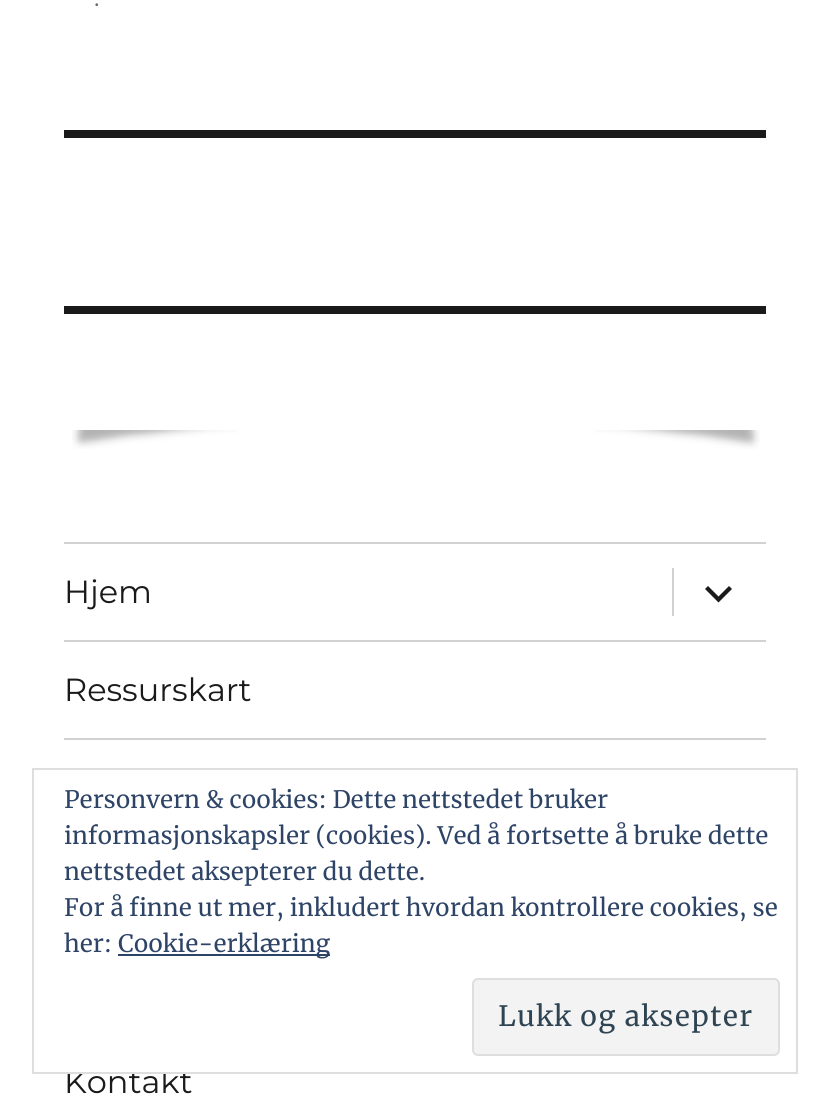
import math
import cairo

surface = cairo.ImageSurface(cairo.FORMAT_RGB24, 830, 1106)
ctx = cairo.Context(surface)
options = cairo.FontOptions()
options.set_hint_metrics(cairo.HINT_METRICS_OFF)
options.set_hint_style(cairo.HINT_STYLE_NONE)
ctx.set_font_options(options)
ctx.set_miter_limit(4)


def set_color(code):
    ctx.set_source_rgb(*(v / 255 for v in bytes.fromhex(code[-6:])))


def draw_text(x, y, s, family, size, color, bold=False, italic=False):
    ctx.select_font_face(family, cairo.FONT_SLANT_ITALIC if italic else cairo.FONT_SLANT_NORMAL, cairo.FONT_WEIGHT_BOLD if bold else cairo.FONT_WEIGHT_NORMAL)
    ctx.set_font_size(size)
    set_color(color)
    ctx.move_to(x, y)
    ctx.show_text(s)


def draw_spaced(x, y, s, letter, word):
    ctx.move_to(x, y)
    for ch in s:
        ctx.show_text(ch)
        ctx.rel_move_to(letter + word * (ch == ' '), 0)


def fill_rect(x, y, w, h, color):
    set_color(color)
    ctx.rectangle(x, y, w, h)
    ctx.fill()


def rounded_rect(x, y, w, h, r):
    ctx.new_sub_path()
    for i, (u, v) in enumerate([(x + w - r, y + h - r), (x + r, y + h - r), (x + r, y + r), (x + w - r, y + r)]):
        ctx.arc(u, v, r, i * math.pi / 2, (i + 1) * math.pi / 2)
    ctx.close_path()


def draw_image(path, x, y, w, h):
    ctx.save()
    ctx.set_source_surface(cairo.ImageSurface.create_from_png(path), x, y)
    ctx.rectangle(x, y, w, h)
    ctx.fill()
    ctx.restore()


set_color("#ffffff")
ctx.paint()
draw_text(94, 6, ".", "Montserrat Thin", 26, "#686868")
fill_rect(64, 130, 702, 8, "#1a1a1a")
fill_rect(64, 306, 702, 8, "#1a1a1a")
draw_image("assets/img1.png", 72, 430, 165, 19)
draw_image("assets/img2.png", 595, 430, 165, 19)
fill_rect(64, 542, 702, 2, "#d1d1d1")
draw_text(64, 603, "Hjem", "Montserrat Thin", 32, "#1a1a1a")
fill_rect(672, 568, 2, 48, "#d1d1d1")
set_color("#1a1a1a")
ctx.new_path()
ctx.move_to(729, 586)
ctx.line_to(732, 589)
ctx.line_to(718.5, 602.5)
ctx.line_to(705, 589)
ctx.line_to(708, 586)
ctx.line_to(718.5, 596.5)
ctx.close_path()
ctx.fill()
fill_rect(64, 640, 702, 2, "#d1d1d1")
draw_text(64, 701, "Ressurskart", "Montserrat Thin", 32, "#1a1a1a")
fill_rect(64, 738, 702, 2, "#d1d1d1")
draw_text(64, 1093, "Kontakt", "Montserrat Thin", 32, "#1a1a1a")
fill_rect(67, 1069, 99, 3, "#ffffff")
ctx.rectangle(33, 769, 764, 304)
set_color("#dedede")
ctx.stroke()
draw_text(64, 808, "Personvern & cookies: Dette nettstedet bruker", "Merriweather", 24, "#2e4467")
draw_text(64, 844, "informasjonskapsler (cookies). Ved å fortsette å bruke dette", "Merriweather", 24, "#2e4467")
draw_text(64, 880, "nettstedet aksepterer du dette.", "Merriweather", 24, "#2e4467")
draw_text(64, 916, "For å finne ut mer, inkludert hvordan kontrollere cookies, se", "Merriweather", 24, "#2e4467")
draw_text(64, 952, "her:", "Merriweather", 24, "#2e4467")
fill_rect(118, 954, 212, 2, "#2e4467")
draw_text(118, 952, "Cookie-erklæring", "Merriweather", 24, "#2e4467")
set_color("#f3f3f3")
rounded_rect(473, 979, 306, 76, 5)
ctx.fill_preserve()
set_color("#dedede")
ctx.stroke()
ctx.set_font_size(28)
set_color("#2e4453")
draw_spaced(498, 1026, "Lukk og aksepter", 1.25, 0)
surface.write_to_png("output.png")
